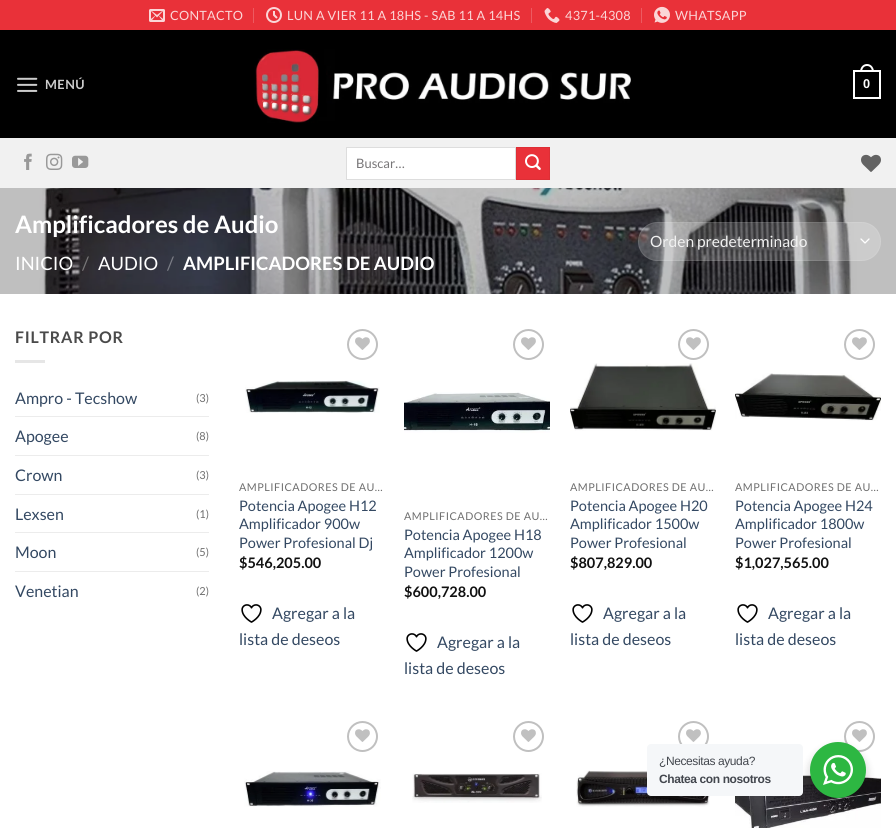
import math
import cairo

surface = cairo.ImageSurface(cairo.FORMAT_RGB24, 896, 828)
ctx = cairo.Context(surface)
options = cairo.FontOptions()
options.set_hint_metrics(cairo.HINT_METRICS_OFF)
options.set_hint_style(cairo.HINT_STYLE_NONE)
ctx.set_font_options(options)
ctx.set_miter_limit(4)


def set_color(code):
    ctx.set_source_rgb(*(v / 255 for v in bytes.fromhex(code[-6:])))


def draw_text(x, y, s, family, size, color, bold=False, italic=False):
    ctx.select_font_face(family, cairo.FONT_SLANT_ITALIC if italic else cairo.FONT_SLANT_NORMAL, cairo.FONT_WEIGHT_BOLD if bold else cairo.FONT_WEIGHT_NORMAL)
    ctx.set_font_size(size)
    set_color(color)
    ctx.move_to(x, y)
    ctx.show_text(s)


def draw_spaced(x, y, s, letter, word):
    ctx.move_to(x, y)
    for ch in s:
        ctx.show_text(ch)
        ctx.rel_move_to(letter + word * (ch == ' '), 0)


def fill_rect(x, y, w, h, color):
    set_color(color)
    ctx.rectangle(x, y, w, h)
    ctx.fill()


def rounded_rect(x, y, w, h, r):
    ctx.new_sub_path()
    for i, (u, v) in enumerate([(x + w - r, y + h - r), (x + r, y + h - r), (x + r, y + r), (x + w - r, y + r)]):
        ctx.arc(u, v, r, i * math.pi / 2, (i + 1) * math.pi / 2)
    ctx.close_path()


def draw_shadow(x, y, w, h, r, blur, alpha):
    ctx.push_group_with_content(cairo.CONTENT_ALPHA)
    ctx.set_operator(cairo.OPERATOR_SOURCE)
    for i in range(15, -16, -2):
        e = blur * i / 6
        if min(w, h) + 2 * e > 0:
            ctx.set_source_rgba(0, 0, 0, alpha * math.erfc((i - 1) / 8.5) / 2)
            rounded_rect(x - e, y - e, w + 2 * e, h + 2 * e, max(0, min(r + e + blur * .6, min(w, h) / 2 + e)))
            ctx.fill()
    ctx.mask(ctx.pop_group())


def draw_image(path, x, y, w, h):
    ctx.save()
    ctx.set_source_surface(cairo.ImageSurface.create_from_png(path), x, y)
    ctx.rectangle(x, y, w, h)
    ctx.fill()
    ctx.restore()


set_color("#ffffff")
ctx.paint()
fill_rect(0, 0, 896, 30, "#e93139")
draw_image("assets/img1.png", 149, 9, 16, 13)
ctx.select_font_face("Lato")
ctx.set_font_size(12.75)
set_color("#fbd6d7")
draw_spaced(170, 20, "CONTACTO", 0.25, 0)
fill_rect(253, 8, 1, 15, "#ed5a61")
draw_image("assets/img2.png", 266, 7, 16, 16)
set_color("#fbd6d7")
draw_spaced(287, 20, "LUN A VIER 11 A 18HS - SAB 11 A 14HS", 0.25, 0)
fill_rect(531, 8, 1, 15, "#ed5a61")
draw_image("assets/img3.png", 544, 8, 16, 15)
set_color("#fbd6d7")
draw_spaced(565, 20, "4371-4308", 0.25, 0)
fill_rect(641, 8, 1, 15, "#ed5a61")
draw_image("assets/img4.png", 654, 6, 16, 17)
set_color("#fbd6d7")
draw_spaced(675, 20, "WHATSAPP", 0.25, 0)
fill_rect(0, 30, 896, 108, "#000000")
draw_image("assets/img5.png", 17, 77, 21, 15)
ctx.select_font_face("Lato", cairo.FONT_SLANT_NORMAL, cairo.FONT_WEIGHT_BOLD)
set_color("#cccccc")
draw_spaced(45, 89, "MENÚ", 0.5, 0)
draw_image("assets/img6.png", 254, 49, 377, 74)
ctx.rectangle(854, 71, 26, 27)
set_color("#ffffff")
ctx.stroke()
ctx.set_fill_rule(cairo.FILL_RULE_EVEN_ODD)
ctx.new_path()
ctx.move_to(867, 64)
ctx.curve_to(871.5, 64, 874, 68, 874, 72)
ctx.line_to(860, 72)
ctx.curve_to(860, 68, 862.5, 64, 867, 64)
ctx.close_path()
ctx.move_to(867, 66)
ctx.curve_to(870.5, 66, 872, 69, 872, 72)
ctx.line_to(862, 72)
ctx.curve_to(862, 69, 863.5, 66, 867, 66)
ctx.close_path()
ctx.fill()
ctx.select_font_face("Liberation Sans", cairo.FONT_SLANT_NORMAL, cairo.FONT_WEIGHT_BOLD)
draw_spaced(863, 88, "0", 0.25, 0)
fill_rect(0, 138, 896, 50, "#f1f1f1")
draw_image("assets/img7.png", 24, 153, 8, 17)
draw_image("assets/img8.png", 46, 153, 17, 17)
draw_image("assets/img9.png", 72, 155, 17, 13)
set_color("#ffffff")
ctx.rectangle(346.5, 147.5, 169, 32)
ctx.fill_preserve()
set_color("#dddddd")
ctx.set_line_width(1)
ctx.stroke()
draw_text(356, 168, "Buscar…", "Lato", 13, "#787678")
set_color("#e93139")
ctx.rectangle(516.5, 147.5, 33, 32)
ctx.fill_preserve()
set_color("#dd2f36")
ctx.stroke()
draw_image("assets/img10.png", 525, 154, 16, 16)
draw_image("assets/img11.png", 861, 154, 20, 18)
draw_image("assets/img12.png", 0, 188, 896, 106)
draw_text(15, 233, "Amplificadores de Audio", "Lato", 24, "#ffffff", bold=True)
draw_text(15, 270, "INICIO", "Lato", 18.4, "#ffffff")
draw_text(82, 270, "/", "Lato", 18.4, "#787678")
draw_text(98, 270, "AUDIO", "Lato", 18.4, "#ffffff")
draw_text(167, 270, "/", "Lato", 18.4, "#7b7d86")
draw_text(183, 270, "AMPLIFICADORES DE AUDIO", "Lato", 18.4, "#ffffff", bold=True)
ctx.set_source_rgba(1, 1, 1, 0.2)
rounded_rect(638, 222, 243, 39, 19.5)
ctx.fill()
ctx.new_path()
ctx.move_to(861, 239)
ctx.line_to(865, 243)
ctx.line_to(869, 239)
set_color("#ffffff")
ctx.set_line_width(1.3)
ctx.set_line_cap(cairo.LINE_CAP_ROUND)
ctx.set_line_join(cairo.LINE_JOIN_ROUND)
ctx.stroke()
rounded_rect(638.5, 222.5, 242, 38, 19)
ctx.set_source_rgba(1, 1, 1, 0.09)
ctx.set_line_width(1)
ctx.set_line_cap(cairo.LINE_CAP_BUTT)
ctx.set_line_join(cairo.LINE_JOIN_MITER)
ctx.stroke()
draw_text(650, 247, "Orden predeterminado", "Lato", 15.5, "#f1f1f1")
ctx.select_font_face("Lato", cairo.FONT_SLANT_NORMAL, cairo.FONT_WEIGHT_BOLD)
ctx.set_font_size(16)
set_color("#4a4a4a")
draw_spaced(15, 343, "FILTRAR POR", 0.75, 0)
fill_rect(15, 360, 30, 3, "#e6e6e6")
draw_text(15, 404, "Ampro - Tecshow", "Lato", 16, "#334862")
draw_text(196, 402, "(3)", "Lato", 11, "#6e6e6e")
fill_rect(15, 416, 194, 1, "#ececec")
draw_text(15, 442, "Apogee", "Lato", 16, "#334862")
draw_text(196, 440, "(8)", "Lato", 11, "#6e6e6e")
fill_rect(15, 455, 194, 1, "#ececec")
draw_text(15, 481, "Crown", "Lato", 16, "#334862")
draw_text(196, 479, "(3)", "Lato", 11, "#6e6e6e")
fill_rect(15, 494, 194, 1, "#ececec")
draw_text(15, 520, "Lexsen", "Lato", 16, "#334862")
draw_text(196, 518, "(1)", "Lato", 11, "#6e6e6e")
fill_rect(15, 532, 194, 1, "#ececec")
draw_text(15, 558, "Moon", "Lato", 16, "#334862")
draw_text(196, 556, "(5)", "Lato", 11, "#6e6e6e")
fill_rect(15, 571, 194, 1, "#ececec")
draw_text(15, 597, "Venetian", "Lato", 16, "#334862")
draw_text(196, 595, "(2)", "Lato", 11, "#6e6e6e")
ctx.new_path()
ctx.arc(362.5, 344.5, 14.5, 0, 2 * math.pi)
set_color("#c0c0c0")
ctx.set_line_width(2)
ctx.stroke()
draw_image("assets/img13.png", 355, 337, 15, 13)
draw_image("assets/img14.png", 245, 380, 135, 33)
ctx.set_font_size(10.75)
set_color("#6e6e6e")
draw_spaced(239, 491, "AMPLIFICADORES DE AU…", 0.5, 0)
draw_text(239, 511, "Potencia Apogee H12", "Lato", 14.5, "#334862")
draw_text(239, 529, "Amplificador 900w", "Lato", 14.5, "#334862")
draw_text(239, 548, "Power Profesional Dj", "Lato", 14.5, "#334862")
draw_text(239, 568, "$546,205.00", "Lato", 14.5, "#111111", bold=True)
draw_image("assets/img15.png", 241, 604, 21, 19)
draw_text(272, 619, "Agregar a la", "Lato", 16, "#334862")
draw_text(239, 645, "lista de deseos", "Lato", 16, "#334862")
ctx.new_path()
ctx.arc(528.5, 344.5, 14.5, 0, 2 * math.pi)
set_color("#c0c0c0")
ctx.stroke()
draw_image("assets/img13.png", 521, 337, 15, 13)
draw_image("assets/img16.png", 404, 392, 146, 41)
ctx.set_font_size(10.75)
set_color("#6e6e6e")
draw_spaced(404, 520, "AMPLIFICADORES DE AU…", 0.5, 0)
draw_text(404, 540, "Potencia Apogee H18", "Lato", 14.5, "#334862")
draw_text(404, 558, "Amplificador 1200w", "Lato", 14.5, "#334862")
draw_text(404, 577, "Power Profesional", "Lato", 14.5, "#334862")
draw_text(404, 597, "$600,728.00", "Lato", 14.5, "#111111", bold=True)
draw_image("assets/img15.png", 406, 633, 21, 19)
draw_text(437, 648, "Agregar a la", "Lato", 16, "#334862")
draw_text(404, 674, "lista de deseos", "Lato", 16, "#334862")
ctx.new_path()
ctx.arc(693.5, 344.5, 14.5, 0, 2 * math.pi)
set_color("#c0c0c0")
ctx.stroke()
draw_image("assets/img13.png", 686, 337, 15, 13)
draw_image("assets/img17.png", 570, 363, 146, 68)
ctx.set_font_size(10.75)
set_color("#6e6e6e")
draw_spaced(570, 491, "AMPLIFICADORES DE AU…", 0.5, 0)
draw_text(570, 511, "Potencia Apogee H20", "Lato", 14.5, "#334862")
draw_text(570, 529, "Amplificador 1500w", "Lato", 14.5, "#334862")
draw_text(570, 548, "Power Profesional", "Lato", 14.5, "#334862")
draw_text(570, 568, "$807,829.00", "Lato", 14.5, "#111111", bold=True)
draw_image("assets/img15.png", 572, 604, 21, 19)
draw_text(603, 619, "Agregar a la", "Lato", 16, "#334862")
draw_text(570, 645, "lista de deseos", "Lato", 16, "#334862")
ctx.new_path()
ctx.arc(859.5, 344.5, 14.5, 0, 2 * math.pi)
set_color("#c0c0c0")
ctx.stroke()
draw_image("assets/img13.png", 852, 337, 15, 13)
draw_image("assets/img18.png", 735, 373, 146, 48)
ctx.set_font_size(10.75)
set_color("#6e6e6e")
draw_spaced(735, 491, "AMPLIFICADORES DE AU…", 0.5, 0)
draw_text(735, 511, "Potencia Apogee H24", "Lato", 14.5, "#334862")
draw_text(735, 529, "Amplificador 1800w", "Lato", 14.5, "#334862")
draw_text(735, 548, "Power Profesional", "Lato", 14.5, "#334862")
draw_text(735, 568, "$1,027,565.00", "Lato", 14.5, "#111111", bold=True)
draw_image("assets/img15.png", 737, 604, 21, 19)
draw_text(768, 619, "Agregar a la", "Lato", 16, "#334862")
draw_text(735, 645, "lista de deseos", "Lato", 16, "#334862")
ctx.new_path()
ctx.arc(362.5, 736.5, 14.5, 0, 2 * math.pi)
set_color("#c0c0c0")
ctx.stroke()
draw_image("assets/img13.png", 355, 729, 15, 13)
draw_image("assets/img19.png", 244, 771, 137, 36)
ctx.arc(528.5, 736.5, 14.5, 0, 2 * math.pi)
ctx.stroke()
draw_image("assets/img13.png", 521, 729, 15, 13)
draw_image("assets/img20.png", 412, 773, 130, 30)
ctx.arc(693.5, 736.5, 14.5, 0, 2 * math.pi)
ctx.stroke()
draw_image("assets/img13.png", 686, 729, 15, 13)
draw_image("assets/img21.png", 576, 770, 134, 37)
ctx.arc(859.5, 736.5, 14.5, 0, 2 * math.pi)
ctx.stroke()
draw_image("assets/img13.png", 852, 729, 15, 13)
draw_image("assets/img22.png", 735, 775, 146, 53)
set_color("#000000")
draw_shadow(808, 746, 60, 60, 30, 4, 0.14)
set_color("#f5f7f9")
rounded_rect(647, 744, 156, 52, 4)
ctx.fill()
ctx.select_font_face("Liberation Sans")
ctx.set_font_size(12)
set_color("#43474e")
draw_spaced(659, 765, "¿Necesitas ayuda?", -0.4, 0)
ctx.select_font_face("Liberation Sans", cairo.FONT_SLANT_NORMAL, cairo.FONT_WEIGHT_BOLD)
draw_spaced(659, 783, "Chatea con nosotros", -0.4, 0)
set_color("#2db742")
ctx.new_path()
ctx.arc(838, 770, 28, 0, 2 * math.pi)
ctx.fill()
draw_image("assets/img23.png", 823, 755, 30, 30)
surface.write_to_png("output.png")
